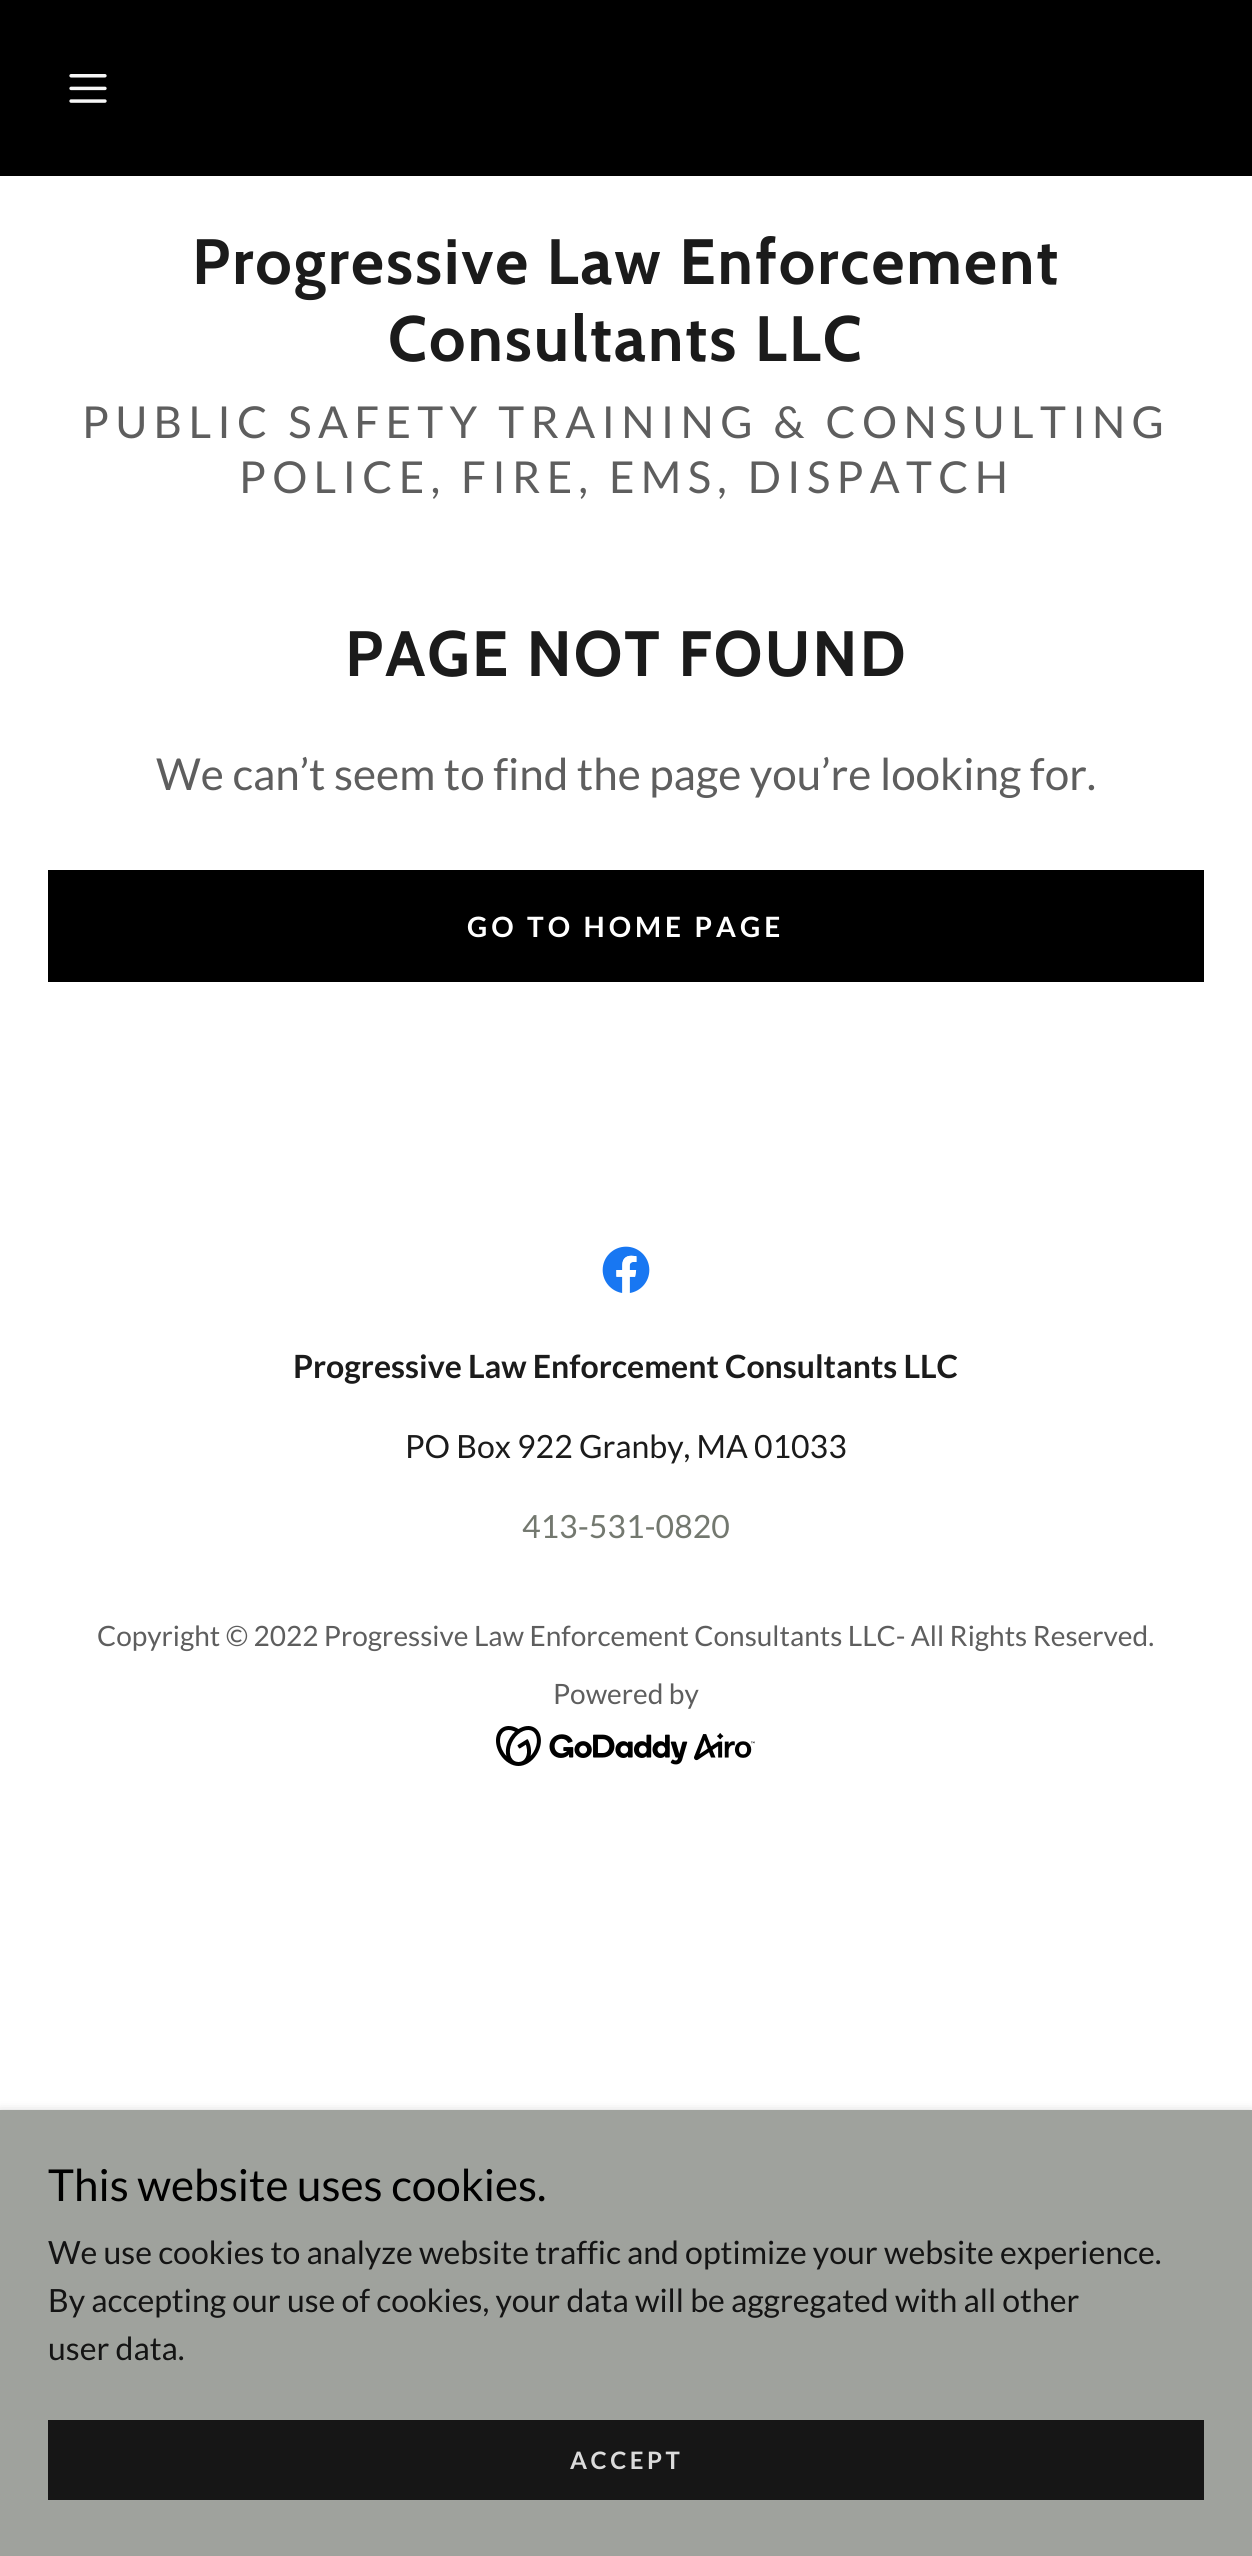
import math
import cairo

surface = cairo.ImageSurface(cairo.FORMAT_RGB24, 1252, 2556)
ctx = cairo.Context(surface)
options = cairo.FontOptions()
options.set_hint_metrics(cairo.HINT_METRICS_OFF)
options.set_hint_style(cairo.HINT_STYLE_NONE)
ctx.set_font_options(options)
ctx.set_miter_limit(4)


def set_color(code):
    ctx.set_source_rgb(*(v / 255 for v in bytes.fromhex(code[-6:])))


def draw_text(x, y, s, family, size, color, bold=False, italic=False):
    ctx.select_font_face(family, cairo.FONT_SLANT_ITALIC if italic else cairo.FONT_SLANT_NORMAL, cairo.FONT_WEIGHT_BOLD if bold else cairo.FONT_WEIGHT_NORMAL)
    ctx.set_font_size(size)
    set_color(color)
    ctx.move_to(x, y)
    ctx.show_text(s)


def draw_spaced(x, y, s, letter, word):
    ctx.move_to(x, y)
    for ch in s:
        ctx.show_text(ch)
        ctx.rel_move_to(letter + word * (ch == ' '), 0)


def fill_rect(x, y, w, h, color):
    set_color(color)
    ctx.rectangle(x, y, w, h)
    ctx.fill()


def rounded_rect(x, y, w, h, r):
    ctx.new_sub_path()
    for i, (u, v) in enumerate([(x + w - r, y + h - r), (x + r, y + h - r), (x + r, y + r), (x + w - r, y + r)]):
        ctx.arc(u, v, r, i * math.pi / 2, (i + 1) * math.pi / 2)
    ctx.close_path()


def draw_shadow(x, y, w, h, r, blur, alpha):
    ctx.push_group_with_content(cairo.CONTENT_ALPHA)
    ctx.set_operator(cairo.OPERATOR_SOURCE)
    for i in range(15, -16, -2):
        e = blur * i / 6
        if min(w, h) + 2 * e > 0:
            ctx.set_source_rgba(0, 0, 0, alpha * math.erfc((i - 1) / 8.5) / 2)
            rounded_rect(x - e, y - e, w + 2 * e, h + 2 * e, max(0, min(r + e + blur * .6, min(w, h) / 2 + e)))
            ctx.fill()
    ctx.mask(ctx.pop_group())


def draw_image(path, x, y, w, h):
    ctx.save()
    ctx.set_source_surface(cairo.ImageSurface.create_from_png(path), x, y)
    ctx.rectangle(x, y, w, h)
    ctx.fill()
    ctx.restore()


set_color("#ffffff")
ctx.paint()
fill_rect(0, 0, 1252, 176, "#000000")
draw_image("assets/img1.png", 69, 74, 38, 29)
ctx.select_font_face("Cabin", cairo.FONT_SLANT_NORMAL, cairo.FONT_WEIGHT_BOLD)
ctx.set_font_size(64)
set_color("#1b1b1b")
draw_spaced(192, 284, "Progressive Law Enforcement", 2, 0)
draw_spaced(388, 361, "Consultants LLC", 2, 0)
ctx.select_font_face("Lato")
ctx.set_font_size(44)
set_color("#5e5e5e")
draw_spaced(82, 438, "PUBLIC SAFETY TRAINING & CONSULTING", 6.3, 0)
draw_spaced(239, 493, "POLICE, FIRE, EMS, DISPATCH", 6.3, 0)
ctx.select_font_face("Cabin", cairo.FONT_SLANT_NORMAL, cairo.FONT_WEIGHT_BOLD)
ctx.set_font_size(64)
set_color("#1b1b1b")
draw_spaced(345, 676, "PAGE NOT FOUND", 2, 0)
draw_text(156, 790, "We can’t seem to find the page you’re looking for.", "Lato", 44, "#5e5e5e")
fill_rect(48, 870, 1156, 112, "#000000")
ctx.select_font_face("Lato", cairo.FONT_SLANT_NORMAL, cairo.FONT_WEIGHT_BOLD)
ctx.set_font_size(28)
set_color("#ffffff")
draw_spaced(467, 937, "GO TO HOME PAGE", 4, 0)
draw_image("assets/img2.png", 602, 1246, 48, 47)
draw_text(293, 1378, "Progressive Law Enforcement Consultants LLC", "Lato", 32, "#1b1b1b", bold=True)
draw_text(405, 1458, "PO Box 922 Granby, MA 01033", "Lato", 32, "#1b1b1b")
draw_text(522, 1538, "413-531-0820", "Lato", 32, "#73786f")
draw_text(97, 1646, "Copyright © 2022 Progressive Law Enforcement Consultants LLC- All Rights Reserved.", "Lato", 28, "#5e5e5e")
draw_text(553, 1704, "Powered by", "Lato", 28, "#5e5e5e")
draw_image("assets/img3.png", 496, 1726, 259, 40)
set_color("#000000")
draw_shadow(0, 2114, 1252, 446, 0, 6, 0.3)
fill_rect(0, 2110, 1252, 446, "#9fa29d")
draw_text(48, 2201, "This website uses cookies.", "Lato", 44, "#000000")
draw_text(48, 2264, "We use cookies to analyze website traffic and optimize your website experience.", "Lato", 32, "#141414")
draw_text(48, 2312, "By accepting our use of cookies, your data will be aggregated with all other", "Lato", 32, "#141414")
draw_text(48, 2360, "user data.", "Lato", 32, "#141414")
fill_rect(48, 2420, 1156, 80, "#161616")
ctx.select_font_face("Lato", cairo.FONT_SLANT_NORMAL, cairo.FONT_WEIGHT_BOLD)
ctx.set_font_size(24)
set_color("#dbdbdb")
draw_spaced(570, 2469, "ACCEPT", 3.5, 0)
surface.write_to_png("output.png")
